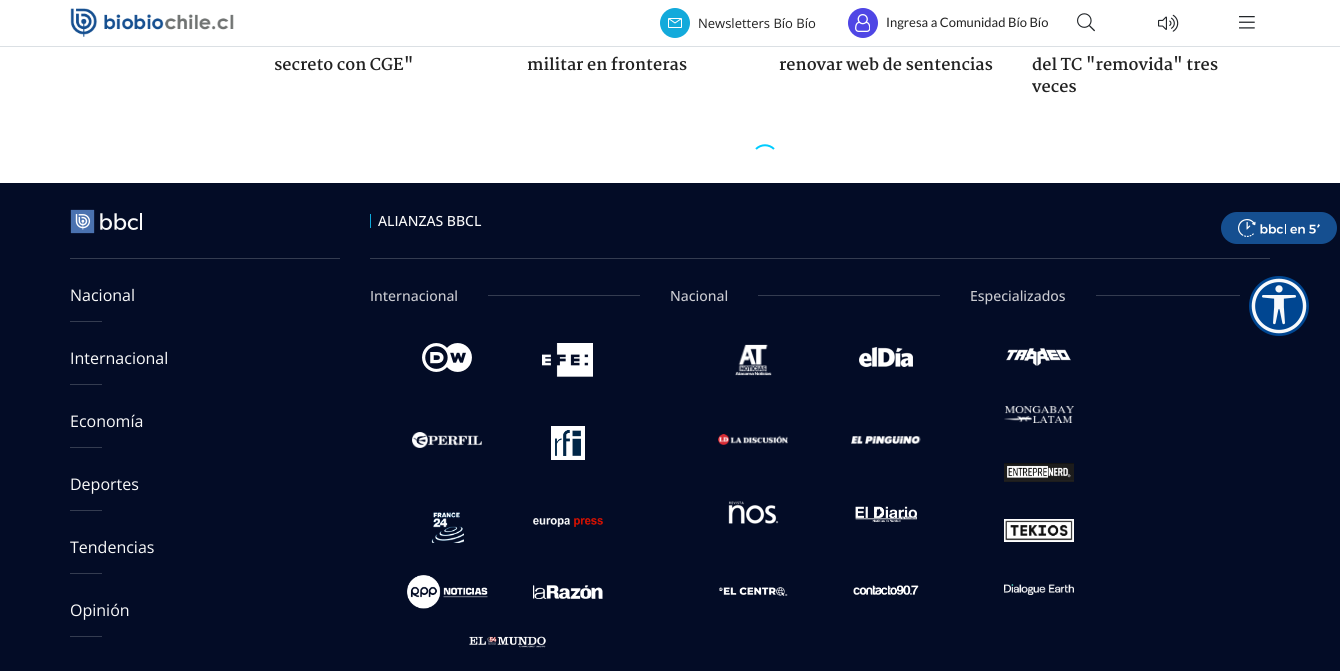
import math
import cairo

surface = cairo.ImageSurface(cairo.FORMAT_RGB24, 1340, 671)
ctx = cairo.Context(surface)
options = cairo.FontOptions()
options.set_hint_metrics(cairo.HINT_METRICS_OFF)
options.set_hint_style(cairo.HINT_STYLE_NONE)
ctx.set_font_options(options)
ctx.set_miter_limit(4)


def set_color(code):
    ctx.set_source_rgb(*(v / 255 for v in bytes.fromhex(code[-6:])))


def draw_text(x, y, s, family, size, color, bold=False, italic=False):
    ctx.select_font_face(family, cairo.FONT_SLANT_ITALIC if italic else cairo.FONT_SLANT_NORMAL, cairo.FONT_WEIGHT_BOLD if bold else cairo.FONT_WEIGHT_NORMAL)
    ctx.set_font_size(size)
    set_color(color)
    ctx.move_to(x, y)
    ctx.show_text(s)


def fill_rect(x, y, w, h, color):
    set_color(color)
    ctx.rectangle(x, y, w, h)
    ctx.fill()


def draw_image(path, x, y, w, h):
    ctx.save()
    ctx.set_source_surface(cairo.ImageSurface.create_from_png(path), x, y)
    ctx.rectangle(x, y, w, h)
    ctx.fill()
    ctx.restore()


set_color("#ffffff")
ctx.paint()
fill_rect(0, 46, 1340, 1, "#dbe0e4")
draw_image("assets/img1.png", 70, 8, 164, 29)
set_color("#13aadb")
ctx.arc(675, 23, 15, 0, 2 * math.pi)
ctx.fill()
draw_image("assets/img2.png", 668, 18, 14, 10)
draw_text(698, 28, "Newsletters Bío Bío", "Open Sans", 13, "#222222")
set_color("#4f46e5")
ctx.new_path()
ctx.arc(863, 23, 15, 0, 2 * math.pi)
ctx.fill()
draw_image("assets/img3.png", 855, 14, 15, 18)
draw_text(886, 27, "Ingresa a Comunidad Bío Bío", "Lato", 13, "#222222")
draw_image("assets/img4.png", 1077, 13, 18, 19)
draw_image("assets/img5.png", 1158, 14, 21, 18)
draw_image("assets/img6.png", 1239, 16, 16, 13)
fill_rect(0, 183, 1340, 488, "#030c26")
draw_image("assets/img7.png", 1221, 212, 116, 32)
draw_image("assets/img8.png", 1249, 276, 60, 60)
draw_text(274, 70, "secreto con CGE\"", "Martel", 16, "#222222", bold=True)
draw_text(527, 70, "militar en fronteras", "Martel", 16, "#222222", bold=True)
draw_text(779, 70, "renovar web de sentencias", "Martel", 16, "#222222", bold=True)
draw_text(1032, 70, "del TC \"removida\" tres", "Martel", 16, "#222222", bold=True)
draw_text(1032, 92, "veces", "Martel", 16, "#222222", bold=True)
ctx.new_path()
ctx.move_to(756, 149)
ctx.curve_to(761, 144, 769, 144, 774, 149)
ctx.move_to(756, 149)
ctx.curve_to(761, 144, 769, 144, 774, 149)
set_color("#00ccff")
ctx.stroke()
fill_rect(370, 258, 900, 1, "#343c50")
fill_rect(370, 214, 1, 14, "#0faadb")
draw_text(378, 226, "ALIANZAS BBCL", "Open Sans Medium", 14, "#fafafa")
draw_text(370, 301, "Internacional", "Open Sans Medium", 14, "#c9cad0")
fill_rect(488, 295, 152, 1, "#343c50")
draw_image("assets/img9.png", 422, 343, 50, 29)
draw_image("assets/img10.png", 542, 343, 51, 34)
draw_image("assets/img11.png", 412, 432, 70, 16)
draw_image("assets/img12.png", 551, 426, 34, 34)
draw_image("assets/img13.png", 431, 512, 33, 31)
draw_image("assets/img14.png", 533, 518, 70, 9)
draw_image("assets/img15.png", 407, 575, 81, 34)
draw_image("assets/img16.png", 533, 585, 70, 14)
draw_image("assets/img17.png", 469, 636, 77, 12)
draw_text(670, 301, "Nacional", "Open Sans Medium", 14, "#c9cad0")
fill_rect(758, 295, 182, 1, "#343c50")
draw_image("assets/img18.png", 735, 344, 37, 32)
draw_image("assets/img19.png", 859, 347, 54, 20)
draw_image("assets/img20.png", 718, 434, 70, 11)
draw_image("assets/img21.png", 851, 436, 70, 8)
draw_image("assets/img22.png", 728, 501, 51, 23)
draw_image("assets/img23.png", 855, 506, 62, 16)
draw_image("assets/img24.png", 719, 587, 69, 9)
draw_image("assets/img25.png", 853, 585, 66, 10)
draw_text(970, 301, "Especializados", "Open Sans Medium", 14, "#c9cad0")
fill_rect(1096, 295, 144, 1, "#343c50")
draw_image("assets/img26.png", 1006, 348, 65, 18)
draw_image("assets/img27.png", 1004, 406, 70, 17)
draw_image("assets/img28.png", 1004, 463, 70, 19)
draw_image("assets/img29.png", 1004, 519, 70, 23)
draw_image("assets/img30.png", 1004, 584, 70, 11)
fill_rect(70, 258, 270, 1, "#343c50")
draw_image("assets/img31.png", 70, 209, 72, 25)
fill_rect(70, 321, 32, 1, "#343c50")
draw_text(70, 301, "Nacional", "Open Sans", 16, "#fafafa")
fill_rect(70, 384, 32, 1, "#343c50")
draw_text(70, 364, "Internacional", "Open Sans", 16, "#fafafa")
fill_rect(70, 447, 32, 1, "#343c50")
draw_text(70, 427, "Economía", "Open Sans", 16, "#fafafa")
fill_rect(70, 510, 32, 1, "#343c50")
draw_text(70, 490, "Deportes", "Open Sans", 16, "#fafafa")
fill_rect(70, 573, 32, 1, "#343c50")
draw_text(70, 553, "Tendencias", "Open Sans", 16, "#fafafa")
fill_rect(70, 636, 32, 1, "#343c50")
draw_text(70, 616, "Opinión", "Open Sans", 16, "#fafafa")
surface.write_to_png("output.png")
